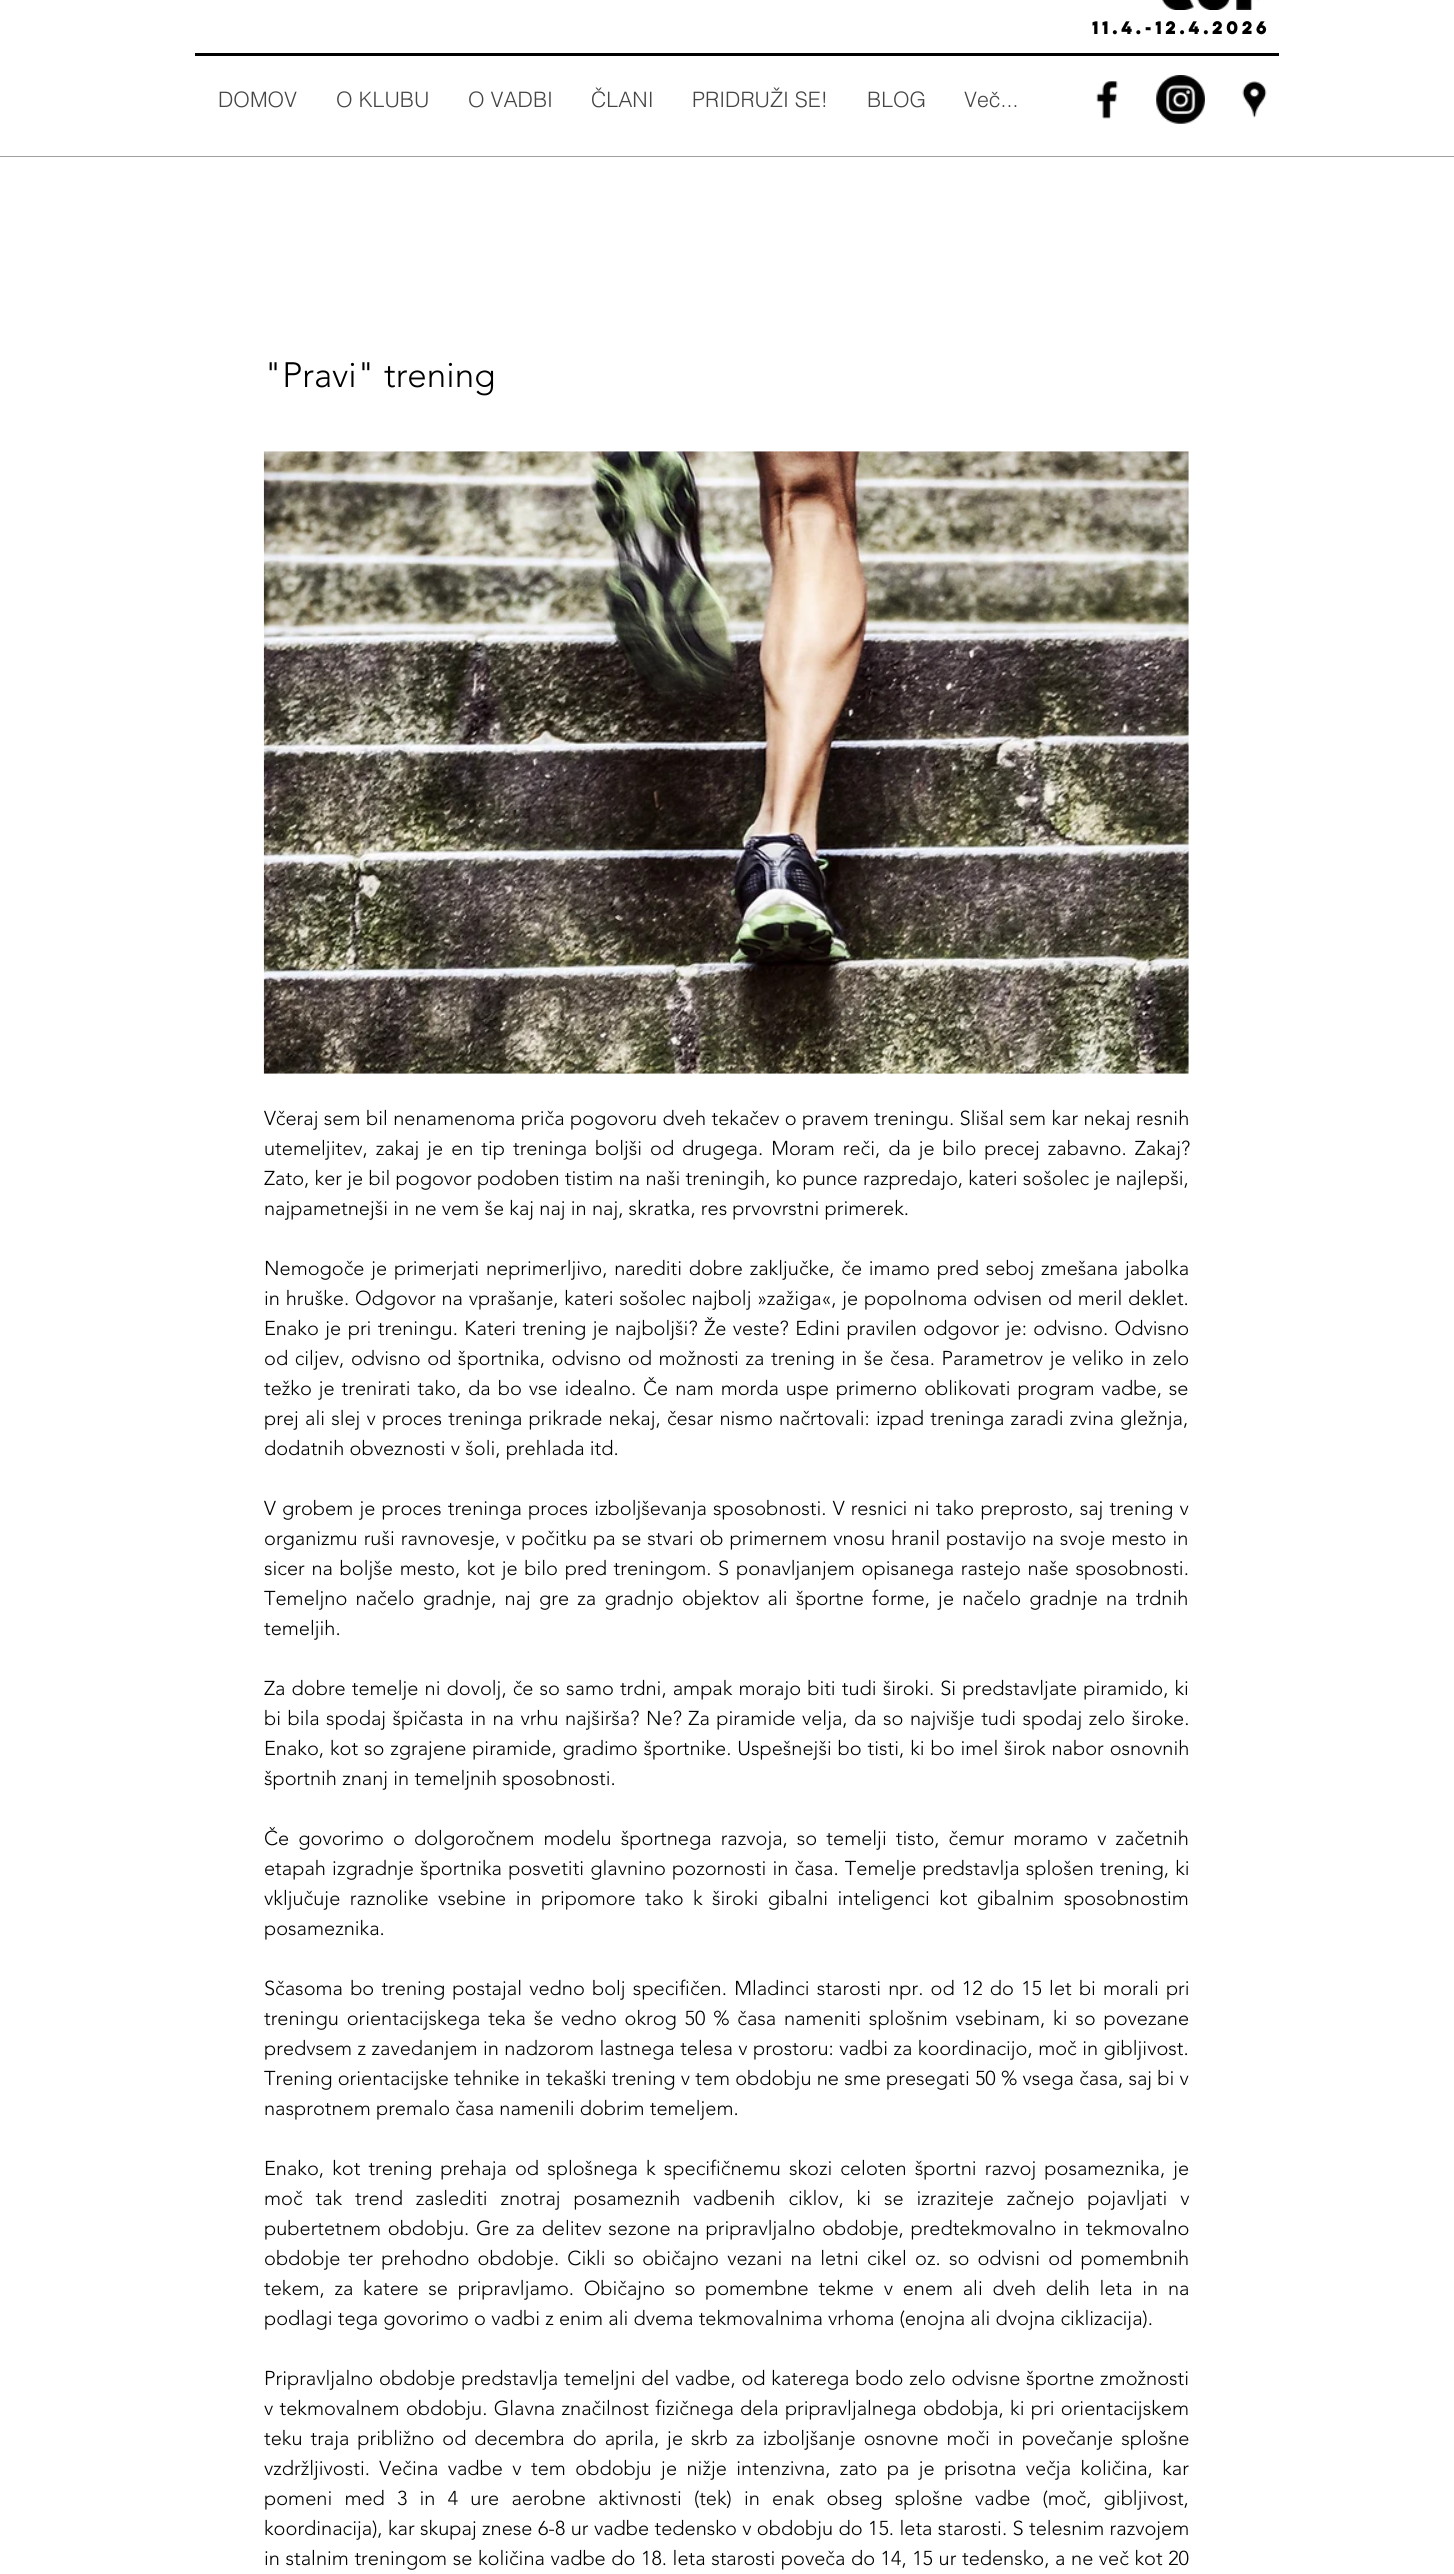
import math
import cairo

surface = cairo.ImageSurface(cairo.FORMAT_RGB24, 1454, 2574)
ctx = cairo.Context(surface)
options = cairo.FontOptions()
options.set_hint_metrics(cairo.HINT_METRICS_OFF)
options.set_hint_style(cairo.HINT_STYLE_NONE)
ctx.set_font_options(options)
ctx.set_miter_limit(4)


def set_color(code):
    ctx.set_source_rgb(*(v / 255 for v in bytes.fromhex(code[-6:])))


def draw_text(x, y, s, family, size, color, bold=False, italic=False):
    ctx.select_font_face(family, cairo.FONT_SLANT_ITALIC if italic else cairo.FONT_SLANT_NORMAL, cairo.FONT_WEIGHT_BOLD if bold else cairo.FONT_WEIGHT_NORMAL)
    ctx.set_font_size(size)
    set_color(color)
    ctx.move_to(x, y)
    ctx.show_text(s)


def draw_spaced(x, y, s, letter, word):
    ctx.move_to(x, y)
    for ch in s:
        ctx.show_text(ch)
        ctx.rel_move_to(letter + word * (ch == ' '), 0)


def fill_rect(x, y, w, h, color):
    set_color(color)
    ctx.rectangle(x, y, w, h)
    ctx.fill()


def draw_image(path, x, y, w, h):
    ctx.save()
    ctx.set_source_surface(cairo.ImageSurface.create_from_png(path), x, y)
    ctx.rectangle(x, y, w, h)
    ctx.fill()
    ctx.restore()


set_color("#ffffff")
ctx.paint()
draw_image("assets/img1.png", 1162, 0, 98, 10)
draw_text(1092, 34, "11.4.-12.4.2026", "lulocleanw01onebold", 16.25, "#000000", bold=True)
fill_rect(195, 53, 1084, 3, "#000000")
draw_text(218, 107, "DOMOV", "helvetica Light", 21.25, "#444444")
draw_text(336, 107, "O KLUBU", "helvetica Light", 21.25, "#444444")
draw_text(468, 107, "O VADBI", "helvetica Light", 21.25, "#444444")
draw_text(591, 107, "ČLANI", "helvetica Light", 21.25, "#444444")
draw_text(692, 107, "PRIDRUŽI SE!", "helvetica Light", 21.25, "#444444")
draw_text(867, 107, "BLOG", "helvetica Light", 21.25, "#444444")
draw_text(964, 107, "Več...", "helvetica Light", 21.25, "#444444")
draw_image("assets/img2.png", 1096, 81, 22, 38)
draw_image("assets/img3.png", 1156, 75, 49, 49)
draw_image("assets/img4.png", 1242, 81, 25, 37)
fill_rect(0, 156, 1454, 1, "#a0a09f")
draw_text(264, 387, "\"Pravi\" trening", "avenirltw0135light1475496 Light", 35, "#000000")
draw_image("assets/img5.png", 263, 451, 926, 623)
ctx.set_font_size(20)
draw_spaced(264, 1125, "Včeraj sem bil nenamenoma priča pogovoru dveh tekačev o pravem treningu. Slišal sem kar nekaj resnih", 0, 0.2)
draw_spaced(264, 1155, "utemeljitev, zakaj je en tip treninga boljši od drugega. Moram reči, da je bilo precej zabavno. Zakaj?", 0, 2.75)
draw_spaced(264, 1185, "Zato, ker je bil pogovor podoben tistim na naši treningih, ko punce razpredajo, kateri sošolec je najlepši,", 0, 0.1)
draw_text(264, 1215, "najpametnejši in ne vem še kaj naj in naj, skratka, res prvovrstni primerek.", "avenirltw0135light1475496 Light", 20, "#000000")
draw_spaced(264, 1275, "Nemogoče je primerjati neprimerljivo, narediti dobre zaključke, če imamo pred seboj zmešana jabolka", 0, 1.6)
draw_spaced(264, 1305, "in hruške. Odgovor na vprašanje, kateri sošolec najbolj »zažiga«, je popolnoma odvisen od meril deklet.", 0, 0.6)
draw_spaced(264, 1335, "Enako je pri treningu. Kateri trening je najboljši? Že veste? Edini pravilen odgovor je: odvisno. Odvisno", 0, 1.25)
draw_spaced(264, 1365, "od ciljev, odvisno od športnika, odvisno od možnosti za trening in še česa. Parametrov je veliko in zelo", 0, 1.4)
draw_spaced(264, 1395, "težko je trenirati tako, da bo vse idealno. Če nam morda uspe primerno oblikovati program vadbe, se", 0, 1.75)
draw_spaced(264, 1425, "prej ali slej v proces treninga prikrade nekaj, česar nismo načrtovali: izpad treninga zaradi zvina gležnja,", 0, 1)
draw_text(264, 1455, "dodatnih obveznosti v šoli, prehlada itd.", "avenirltw0135light1475496 Light", 20, "#000000")
draw_spaced(264, 1515, "V grobem je proces treninga proces izboljševanja sposobnosti. V resnici ni tako preprosto, saj trening v", 0, 1)
draw_spaced(264, 1545, "organizmu ruši ravnovesje, v počitku pa se stvari ob primernem vnosu hranil postavijo na svoje mesto in", 0, 0.75)
draw_spaced(264, 1575, "sicer na boljše mesto, kot je bilo pred treningom. S ponavljanjem opisanega rastejo naše sposobnosti.", 0, 1.5)
draw_spaced(264, 1605, "Temeljno načelo gradnje, naj gre za gradnjo objektov ali športne forme, je načelo gradnje na trdnih", 0, 3)
draw_text(264, 1635, "temeljih.", "avenirltw0135light1475496 Light", 20, "#000000")
draw_spaced(264, 1695, "Za dobre temelje ni dovolj, če so samo trdni, ampak morajo biti tudi široki. Si predstavljate piramido, ki", 0, 0.9)
draw_spaced(264, 1725, "bi bila spodaj špičasta in na vrhu najširša? Ne? Za piramide velja, da so najvišje tudi spodaj zelo široke.", 0, 1.25)
draw_spaced(264, 1755, "Enako, kot so zgrajene piramide, gradimo športnike. Uspešnejši bo tisti, ki bo imel širok nabor osnovnih", 0, 0.7)
draw_text(264, 1785, "športnih znanj in temeljnih sposobnosti.", "avenirltw0135light1475496 Light", 20, "#000000")
draw_spaced(264, 1845, "Če govorimo o dolgoročnem modelu športnega razvoja, so temelji tisto, čemur moramo v začetnih", 0, 3.9)
draw_spaced(264, 1875, "etapah izgradnje športnika posvetiti glavnino pozornosti in časa. Temelje predstavlja splošen trening, ki", 0, 1)
draw_spaced(264, 1905, "vključuje raznolike vsebine in pripomore tako k široki gibalni inteligenci kot gibalnim sposobnostim", 0, 4.25)
draw_text(264, 1935, "posameznika.", "avenirltw0135light1475496 Light", 20, "#000000")
draw_spaced(264, 1995, "Sčasoma bo trening postajal vedno bolj specifičen. Mladinci starosti npr. od 12 do 15 let bi morali pri", 0, 2)
draw_spaced(264, 2025, "treningu orientacijskega teka še vedno okrog 50 % časa nameniti splošnim vsebinam, ki so povezane", 0, 2.6)
draw_spaced(264, 2055, "predvsem z zavedanjem in nadzorom lastnega telesa v prostoru: vadbi za koordinacijo, moč in gibljivost.", 0, 0.25)
draw_text(264, 2085, "Trening orientacijske tehnike in tekaški trening v tem obdobju ne sme presegati 50 % vsega časa, saj bi v", "avenirltw0135light1475496 Light", 20, "#000000")
draw_text(264, 2115, "nasprotnem premalo časa namenili dobrim temeljem.", "avenirltw0135light1475496 Light", 20, "#000000")
draw_spaced(264, 2175, "Enako, kot trening prehaja od splošnega k specifičnemu skozi celoten športni razvoj posameznika, je", 0, 2.9)
draw_spaced(264, 2205, "moč tak trend zaslediti znotraj posameznih vadbenih ciklov, ki se izraziteje začnejo pojavljati v", 0, 7.75)
draw_spaced(264, 2235, "pubertetnem obdobju. Gre za delitev sezone na pripravljalno obdobje, predtekmovalno in tekmovalno", 0, 1.5)
draw_spaced(264, 2265, "obdobje ter prehodno obdobje. Cikli so običajno vezani na letni cikel oz. so odvisni od pomembnih", 0, 3)
draw_spaced(264, 2295, "tekem, za katere se pripravljamo. Običajno so pomembne tekme v enem ali dveh delih leta in na", 0, 4.5)
draw_text(264, 2325, "podlagi tega govorimo o vadbi z enim ali dvema tekmovalnima vrhoma (enojna ali dvojna ciklizacija).", "avenirltw0135light1475496 Light", 20, "#000000")
draw_spaced(264, 2385, "Pripravljalno obdobje predstavlja temeljni del vadbe, od katerega bodo zelo odvisne športne zmožnosti", 0, 0.6)
draw_spaced(264, 2415, "v tekmovalnem obdobju. Glavna značilnost fizičnega dela pripravljalnega obdobja, ki pri orientacijskem", 0, 1.1)
draw_spaced(264, 2445, "teku traja približno od decembra do aprila, je skrb za izboljšanje osnovne moči in povečanje splošne", 0, 2.75)
draw_spaced(264, 2475, "vzdržljivosti. Večina vadbe v tem obdobju je nižje intenzivna, zato pa je prisotna večja količina, kar", 0, 4.25)
draw_spaced(264, 2505, "pomeni med 3 in 4 ure aerobne aktivnosti (tek) in enak obseg splošne vadbe (moč, gibljivost,", 0, 7)
draw_spaced(264, 2535, "koordinacija), kar skupaj znese 6-8 ur vadbe tedensko v obdobju do 15. leta starosti. S telesnim razvojem", 0, 0.2)
draw_spaced(264, 2565, "in stalnim treningom se količina vadbe do 18. leta starosti poveča do 14, 15 ur tedensko, a ne več kot 20", 0, 0.4)
surface.write_to_png("output.png")
